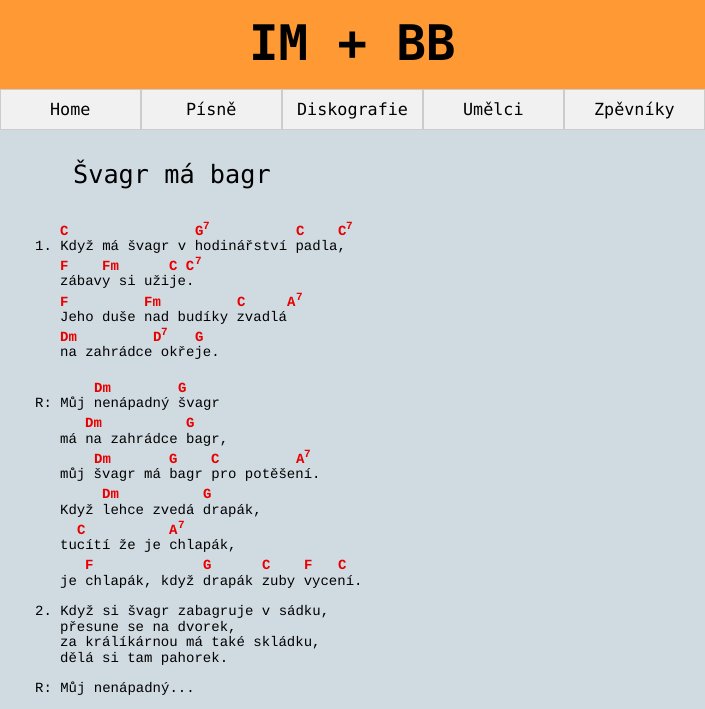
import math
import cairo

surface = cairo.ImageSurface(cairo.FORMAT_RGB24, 705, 709)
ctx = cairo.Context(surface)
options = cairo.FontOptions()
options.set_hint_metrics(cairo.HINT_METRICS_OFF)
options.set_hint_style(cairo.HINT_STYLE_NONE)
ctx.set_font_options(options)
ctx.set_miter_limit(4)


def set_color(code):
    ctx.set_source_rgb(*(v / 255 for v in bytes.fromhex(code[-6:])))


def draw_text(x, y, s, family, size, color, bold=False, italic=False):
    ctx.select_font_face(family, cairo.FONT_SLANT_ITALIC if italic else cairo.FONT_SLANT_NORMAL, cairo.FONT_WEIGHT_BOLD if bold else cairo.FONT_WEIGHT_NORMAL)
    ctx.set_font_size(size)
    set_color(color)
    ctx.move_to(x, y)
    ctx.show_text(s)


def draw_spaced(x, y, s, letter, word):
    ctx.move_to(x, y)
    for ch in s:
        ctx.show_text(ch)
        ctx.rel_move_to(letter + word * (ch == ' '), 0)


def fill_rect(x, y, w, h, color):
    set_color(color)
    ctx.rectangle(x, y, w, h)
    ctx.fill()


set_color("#ff9933")
ctx.paint()
draw_text(249, 60, "IM + BB", "DejaVu Sans Mono", 49, "#000000", bold=True)
fill_rect(1, 90, 703, 39, "#f1f1f1")
ctx.rectangle(0.5, 89.5, 140, 40)
set_color("#cccccc")
ctx.set_line_width(1)
ctx.stroke()
draw_text(50, 115, "Home", "DejaVu Sans Mono", 16.75, "#000000")
ctx.rectangle(141.5, 89.5, 140, 40)
set_color("#cccccc")
ctx.stroke()
draw_text(186, 115, "Písně", "DejaVu Sans Mono", 16.75, "#000000")
ctx.rectangle(282.5, 89.5, 140, 40)
set_color("#cccccc")
ctx.stroke()
draw_text(297, 115, "Diskografie", "DejaVu Sans Mono", 16.75, "#000000")
ctx.rectangle(423.5, 89.5, 140, 40)
set_color("#cccccc")
ctx.stroke()
draw_text(463, 115, "Umělci", "DejaVu Sans Mono", 16.75, "#000000")
ctx.rectangle(564.5, 89.5, 140, 40)
set_color("#cccccc")
ctx.stroke()
draw_text(594, 115, "Zpěvníky", "DejaVu Sans Mono", 16.75, "#000000")
fill_rect(0, 130, 705, 579, "#d0dae1")
draw_text(73, 183, "Švagr má bagr", "DejaVu Sans Mono", 25.25, "#000000")
draw_text(60, 235, "C", "Liberation Mono", 14, "#e80000", bold=True)
draw_text(195, 235, "G", "Liberation Mono", 14, "#e80000", bold=True)
ctx.set_font_size(11)
draw_spaced(203, 229, "7", 2, 0)
draw_text(296, 235, "C", "Liberation Mono", 14, "#e80000", bold=True)
draw_text(338, 235, "C", "Liberation Mono", 14, "#e80000", bold=True)
ctx.set_font_size(11)
draw_spaced(346, 229, "7", 2, 0)
draw_text(35, 250, "1. Když má švagr v hodinářství padla,", "Liberation Mono", 14, "#000000")
draw_text(60, 270, "F", "Liberation Mono", 14, "#e80000", bold=True)
draw_text(102, 270, "Fm", "Liberation Mono", 14, "#e80000", bold=True)
draw_text(169, 270, "C C", "Liberation Mono", 14, "#e80000", bold=True)
ctx.set_font_size(11)
draw_spaced(195, 264, "7", 2, 0)
draw_text(60, 285, "zábavy si užije.", "Liberation Mono", 14, "#000000")
draw_text(60, 306, "F", "Liberation Mono", 14, "#e80000", bold=True)
draw_text(144, 306, "Fm", "Liberation Mono", 14, "#e80000", bold=True)
draw_text(237, 306, "C", "Liberation Mono", 14, "#e80000", bold=True)
draw_text(287, 306, "A", "Liberation Mono", 14, "#e80000", bold=True)
ctx.set_font_size(11)
draw_spaced(296, 300, "7", 2, 0)
draw_text(60, 321, "Jeho duše nad budíky zvadlá", "Liberation Mono", 14, "#000000")
draw_text(60, 341, "Dm", "Liberation Mono", 14, "#e80000", bold=True)
draw_text(153, 341, "D", "Liberation Mono", 14, "#e80000", bold=True)
ctx.set_font_size(11)
draw_spaced(161, 335, "7", 2, 0)
draw_text(195, 341, "G", "Liberation Mono", 14, "#e80000", bold=True)
draw_text(60, 356, "na zahrádce okřeje.", "Liberation Mono", 14, "#000000")
draw_text(94, 392, "Dm", "Liberation Mono", 14, "#e80000", bold=True)
draw_text(178, 392, "G", "Liberation Mono", 14, "#e80000", bold=True)
draw_text(35, 407, "R: Můj nenápadný švagr", "Liberation Mono", 14, "#000000")
draw_text(85, 427, "Dm", "Liberation Mono", 14, "#e80000", bold=True)
draw_text(186, 427, "G", "Liberation Mono", 14, "#e80000", bold=True)
draw_text(60, 443, "má na zahrádce bagr,", "Liberation Mono", 14, "#000000")
draw_text(94, 463, "Dm", "Liberation Mono", 14, "#e80000", bold=True)
draw_text(169, 463, "G", "Liberation Mono", 14, "#e80000", bold=True)
draw_text(211, 463, "C", "Liberation Mono", 14, "#e80000", bold=True)
draw_text(296, 463, "A", "Liberation Mono", 14, "#e80000", bold=True)
ctx.set_font_size(11)
draw_spaced(304, 457, "7", 2, 0)
draw_text(60, 478, "můj švagr má bagr pro potěšení.", "Liberation Mono", 14, "#000000")
draw_text(102, 498, "Dm", "Liberation Mono", 14, "#e80000", bold=True)
draw_text(203, 498, "G", "Liberation Mono", 14, "#e80000", bold=True)
draw_text(60, 514, "Když lehce zvedá drapák,", "Liberation Mono", 14, "#000000")
draw_text(77, 534, "C", "Liberation Mono", 14, "#e80000", bold=True)
draw_text(169, 534, "A", "Liberation Mono", 14, "#e80000", bold=True)
ctx.set_font_size(11)
draw_spaced(178, 528, "7", 2, 0)
draw_text(60, 549, "tucítí že je chlapák,", "Liberation Mono", 14, "#000000")
draw_text(85, 569, "F", "Liberation Mono", 14, "#e80000", bold=True)
draw_text(203, 569, "G", "Liberation Mono", 14, "#e80000", bold=True)
draw_text(262, 569, "C", "Liberation Mono", 14, "#e80000", bold=True)
draw_text(304, 569, "F", "Liberation Mono", 14, "#e80000", bold=True)
draw_text(338, 569, "C", "Liberation Mono", 14, "#e80000", bold=True)
draw_text(60, 585, "je chlapák, když drapák zuby vycení.", "Liberation Mono", 14, "#000000")
draw_text(35, 615, "2. Když si švagr zabagruje v sádku,", "Liberation Mono", 14, "#000000")
draw_text(60, 631, "přesune se na dvorek,", "Liberation Mono", 14, "#000000")
draw_text(60, 646, "za králíkárnou má také skládku,", "Liberation Mono", 14, "#000000")
draw_text(60, 662, "dělá si tam pahorek.", "Liberation Mono", 14, "#000000")
draw_text(35, 692, "R: Můj nenápadný...", "Liberation Mono", 14, "#000000")
surface.write_to_png("output.png")
